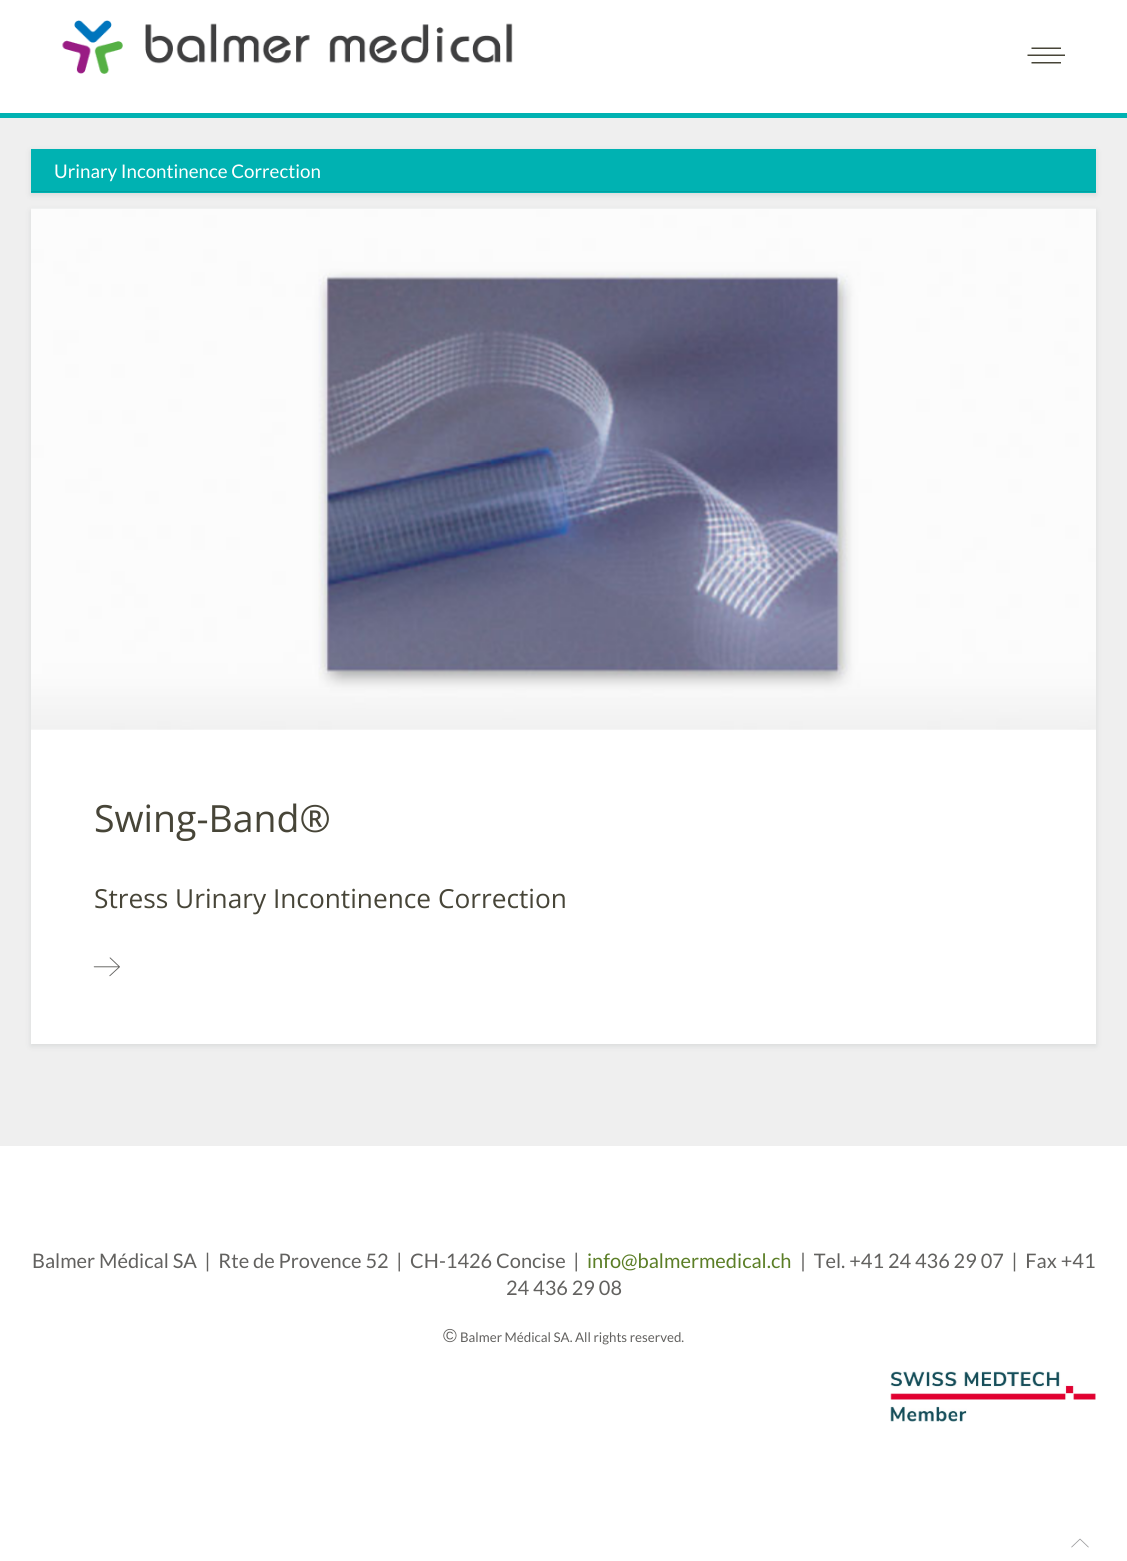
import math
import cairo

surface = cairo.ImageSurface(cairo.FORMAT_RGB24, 1127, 1561)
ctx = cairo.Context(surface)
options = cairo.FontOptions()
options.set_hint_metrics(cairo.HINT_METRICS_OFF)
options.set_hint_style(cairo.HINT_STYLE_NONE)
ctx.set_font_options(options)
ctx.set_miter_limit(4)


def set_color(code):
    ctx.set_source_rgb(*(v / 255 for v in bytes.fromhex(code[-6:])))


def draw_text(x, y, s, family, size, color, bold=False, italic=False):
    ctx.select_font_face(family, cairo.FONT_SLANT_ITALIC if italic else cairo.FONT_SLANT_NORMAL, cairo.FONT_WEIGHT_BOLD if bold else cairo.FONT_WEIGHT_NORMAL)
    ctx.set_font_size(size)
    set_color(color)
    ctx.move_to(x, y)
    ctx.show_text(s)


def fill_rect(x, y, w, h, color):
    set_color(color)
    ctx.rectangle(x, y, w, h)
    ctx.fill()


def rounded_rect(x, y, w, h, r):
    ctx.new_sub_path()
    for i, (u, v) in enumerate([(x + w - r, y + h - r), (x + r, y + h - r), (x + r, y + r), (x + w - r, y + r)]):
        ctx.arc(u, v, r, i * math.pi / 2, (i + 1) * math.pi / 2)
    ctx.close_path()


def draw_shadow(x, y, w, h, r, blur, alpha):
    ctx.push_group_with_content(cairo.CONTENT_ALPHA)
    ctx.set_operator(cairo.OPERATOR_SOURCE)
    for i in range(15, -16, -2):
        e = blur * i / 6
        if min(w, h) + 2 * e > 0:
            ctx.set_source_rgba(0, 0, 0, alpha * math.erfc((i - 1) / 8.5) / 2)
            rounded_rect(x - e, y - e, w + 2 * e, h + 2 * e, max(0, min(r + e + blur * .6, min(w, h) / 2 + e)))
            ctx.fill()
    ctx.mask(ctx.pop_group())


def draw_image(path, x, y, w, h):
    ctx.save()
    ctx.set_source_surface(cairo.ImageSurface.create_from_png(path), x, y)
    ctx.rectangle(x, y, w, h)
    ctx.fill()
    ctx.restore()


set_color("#efefef")
ctx.paint()
fill_rect(0, 0, 1127, 113, "#ffffff")
fill_rect(0, 113, 1127, 5, "#00b2b2")
draw_image("assets/img1.png", 62, 20, 451, 54)
set_color("#474538")
ctx.new_path()
ctx.move_to(1031.5, 47.5)
ctx.line_to(1061, 47.5)
ctx.line_to(1061, 49)
ctx.line_to(1031.5, 49)
ctx.close_path()
ctx.move_to(1031.5, 62)
ctx.line_to(1061, 62)
ctx.line_to(1061, 63.5)
ctx.line_to(1031.5, 63.5)
ctx.close_path()
ctx.move_to(1027.5, 54.5)
ctx.line_to(1065, 54.5)
ctx.line_to(1065, 56)
ctx.line_to(1027.5, 56)
ctx.close_path()
ctx.fill()
set_color("#a0a7a9")
draw_shadow(31, 151, 1065, 44, 0, 3, 0.3)
fill_rect(31, 149, 1065, 44, "#00b2b2")
fill_rect(31, 191, 1065, 1, "#00a0a0")
draw_text(54, 178, "Urinary Incontinence Correction", "Lato", 18.75, "#ffffff")
set_color("#a0a7a9")
draw_shadow(31, 211, 1065, 835, 0, 3, 0.3)
fill_rect(31, 209, 1065, 835, "#ffffff")
draw_image("assets/img2.png", 31, 208, 1065, 522)
draw_text(94, 832, "Swing-Band®", "Open Sans", 37.5, "#474538")
draw_text(94, 908, "Stress Urinary Incontinence Correction", "Open Sans", 26.25, "#474538")
draw_image("assets/img3.png", 93, 957, 27, 20)
fill_rect(0, 1146, 1127, 415, "#ffffff")
draw_text(32, 1268, "Balmer Médical SA  |  Rte de Provence 52  |  CH-1426 Concise  |", "Lato", 20, "#62615f")
draw_text(587, 1268, "info@balmermedical.ch", "Lato", 20, "#5b7e26")
draw_text(800, 1268, "|  Tel. +41 24 436 29 07  |  Fax +41", "Lato", 20, "#62615f")
draw_text(506, 1295, "24 436 29 08", "Lato", 20, "#62615f")
draw_text(443, 1342, "©", "Liberation Sans", 18.75, "#62615f")
draw_text(460, 1342, "Balmer Médical SA. All rights reserved.", "Lato", 13.3, "#62615f")
draw_image("assets/img4.png", 890, 1371, 206, 51)
draw_image("assets/img5.png", 1071, 1538, 18, 10)
surface.write_to_png("output.png")
